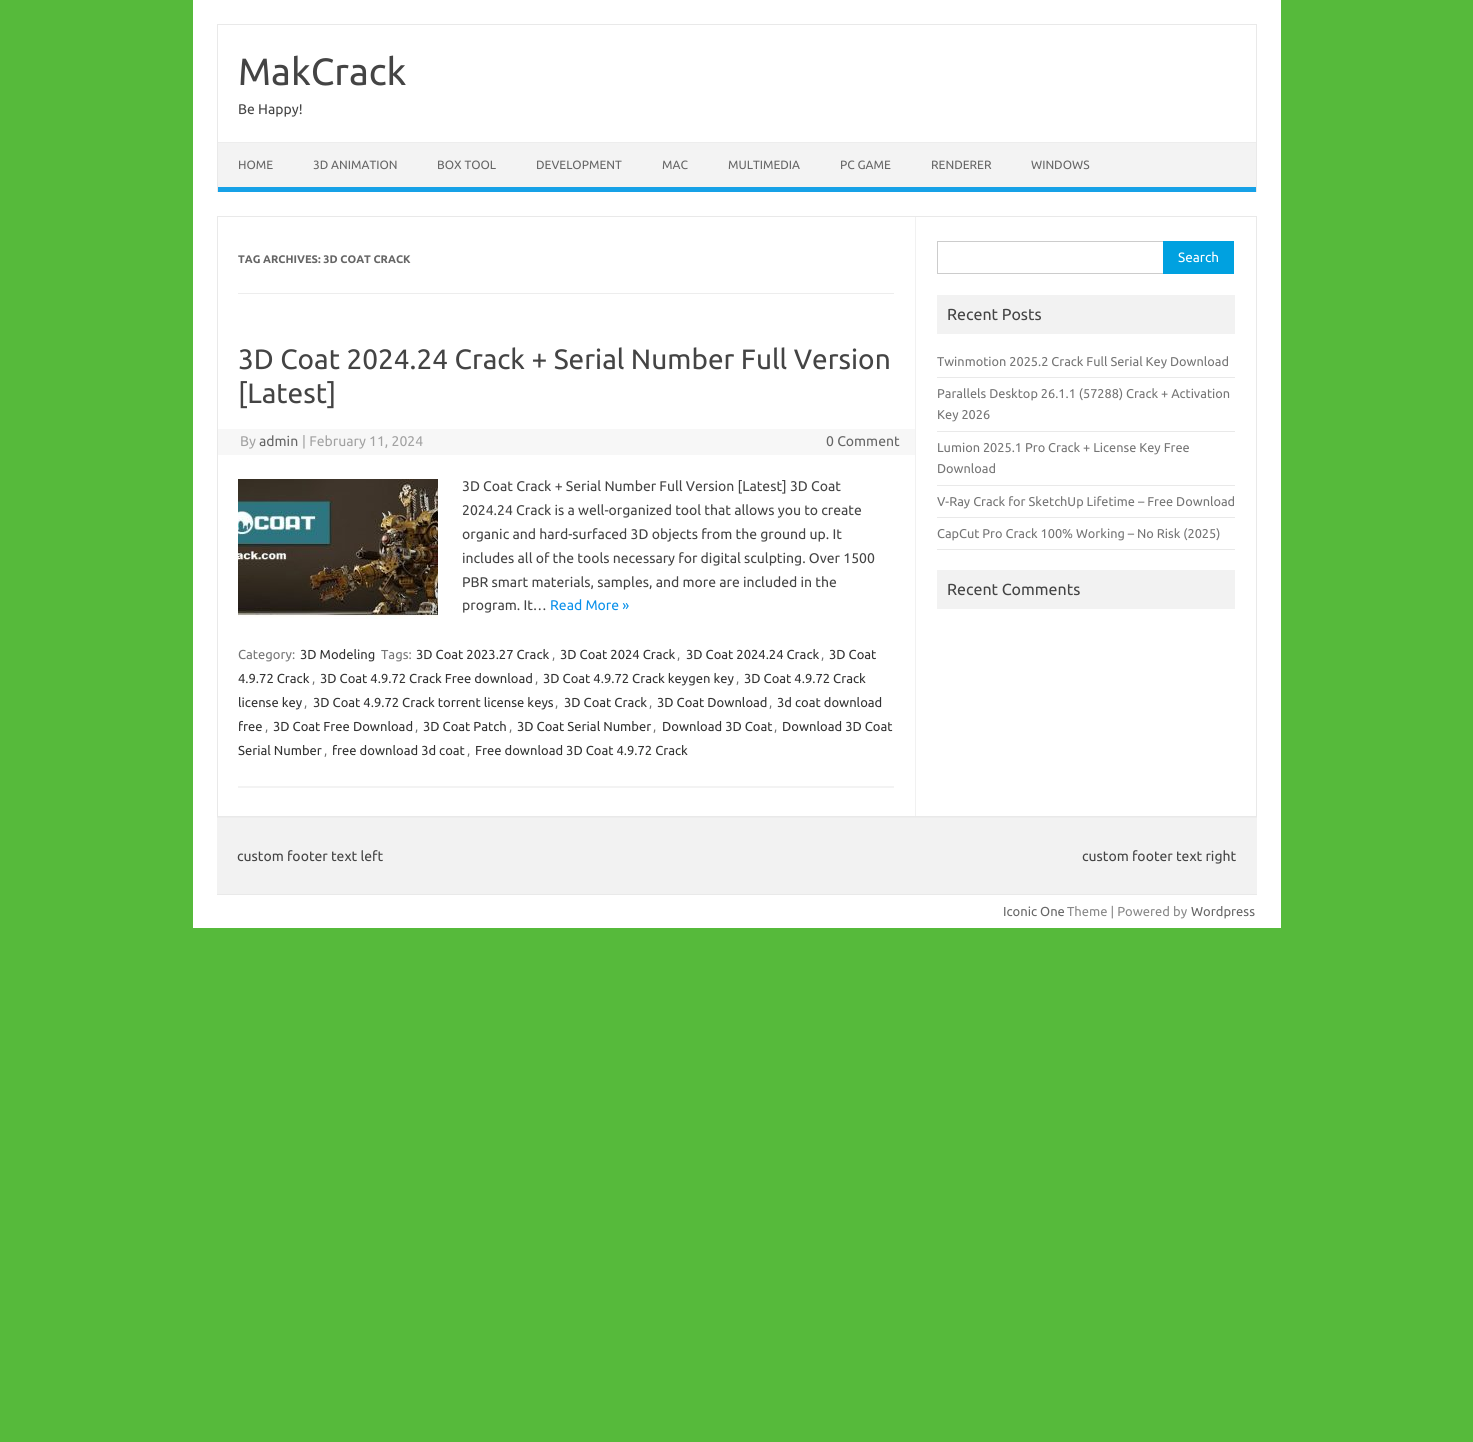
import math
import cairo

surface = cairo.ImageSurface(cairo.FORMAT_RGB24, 1473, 1442)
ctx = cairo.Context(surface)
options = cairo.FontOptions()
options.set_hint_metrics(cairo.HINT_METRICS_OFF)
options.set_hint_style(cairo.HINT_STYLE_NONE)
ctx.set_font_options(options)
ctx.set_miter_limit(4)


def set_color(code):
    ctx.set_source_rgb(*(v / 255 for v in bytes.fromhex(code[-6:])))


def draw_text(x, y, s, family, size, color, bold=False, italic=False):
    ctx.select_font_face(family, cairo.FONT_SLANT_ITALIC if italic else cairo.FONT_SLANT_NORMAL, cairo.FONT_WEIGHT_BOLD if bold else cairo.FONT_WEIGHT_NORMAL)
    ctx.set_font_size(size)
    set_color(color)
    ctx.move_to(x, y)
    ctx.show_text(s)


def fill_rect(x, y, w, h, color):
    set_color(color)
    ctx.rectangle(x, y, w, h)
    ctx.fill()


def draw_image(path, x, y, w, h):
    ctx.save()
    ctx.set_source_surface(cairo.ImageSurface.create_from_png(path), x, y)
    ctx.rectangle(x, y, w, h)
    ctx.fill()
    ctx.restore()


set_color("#56ba3b")
ctx.paint()
fill_rect(193, 0, 1088, 928, "#ffffff")
fill_rect(217, 24, 1040, 1, "#e9e9e9")
fill_rect(1256, 24, 1, 168, "#e9e9e9")
fill_rect(217, 24, 1, 168, "#e9e9e9")
draw_text(238, 85, "MakCrack", "Ubuntu", 38, "#444444")
draw_text(238, 114, "Be Happy!", "Ubuntu", 14, "#444444")
fill_rect(218, 143, 1038, 44, "#f3f3f3")
fill_rect(218, 142, 1038, 1, "#ededed")
fill_rect(218, 187, 1038, 5, "#16a1e7")
draw_text(238, 169, "HOME", "Ubuntu", 12, "#666666")
draw_text(313, 169, "3D ANIMATION", "Ubuntu", 12, "#666666")
draw_text(437, 169, "BOX TOOL", "Ubuntu", 12, "#666666")
draw_text(536, 169, "DEVELOPMENT", "Ubuntu", 12, "#666666")
draw_text(662, 169, "MAC", "Ubuntu", 12, "#666666")
draw_text(728, 169, "MULTIMEDIA", "Ubuntu", 12, "#666666")
draw_text(840, 169, "PC GAME", "Ubuntu", 12, "#666666")
draw_text(931, 169, "RENDERER", "Ubuntu", 12, "#666666")
draw_text(1031, 169, "WINDOWS", "Ubuntu", 12, "#666666")
ctx.rectangle(217.5, 216.5, 1039, 600)
set_color("#e9e9e9")
ctx.set_line_width(1)
ctx.stroke()
fill_rect(915, 217, 1, 599, "#f1f1f1")
fill_rect(238, 293, 656, 1, "#ededed")
draw_text(238, 263, "TAG ARCHIVES: 3D COAT CRACK", "Ubuntu", 11, "#666666", bold=True)
fill_rect(238, 786, 656, 2, "#f3f3f3")
draw_text(238, 369, "3D Coat 2024.24 Crack + Serial Number Full Version", "Ubuntu", 28, "#444444")
draw_text(238, 403, "[Latest]", "Ubuntu", 28, "#444444")
fill_rect(218, 429, 697, 26, "#f7f7f7")
draw_text(240, 446, "By", "Ubuntu", 14, "#a2a2a2")
draw_text(259, 446, "admin", "Ubuntu", 14, "#666666")
draw_text(302, 446, "| February 11, 2024", "Ubuntu", 14, "#a2a2a2")
draw_text(826, 446, "0 Comment", "Ubuntu", 14, "#666666")
draw_image("assets/img1.png", 238, 479, 200, 140)
draw_text(462, 491, "3D Coat Crack + Serial Number Full Version [Latest] 3D Coat", "Ubuntu", 14, "#444444")
draw_text(462, 515, "2024.24 Crack is a well-organized tool that allows you to create", "Ubuntu", 14, "#444444")
draw_text(462, 539, "organic and hard-surfaced 3D objects from the ground up. It", "Ubuntu", 14, "#444444")
draw_text(462, 563, "includes all of the tools necessary for digital sculpting. Over 1500", "Ubuntu", 14, "#444444")
draw_text(462, 587, "PBR smart materials, samples, and more are included in the", "Ubuntu", 14, "#444444")
draw_text(462, 610, "program. It…", "Ubuntu", 14, "#444444")
draw_text(550, 610, "Read More »", "Ubuntu", 14, "#0b91ea")
draw_text(238, 659, "Category:", "Ubuntu", 13, "#757575")
draw_text(300, 659, "3D Modeling", "Ubuntu", 13, "#333333")
draw_text(381, 659, "Tags:", "Ubuntu", 13, "#757575")
draw_text(416, 659, "3D Coat 2023.27 Crack", "Ubuntu", 13, "#333333")
draw_text(552, 659, ",", "Ubuntu", 13, "#757575")
draw_text(560, 659, "3D Coat 2024 Crack", "Ubuntu", 13, "#333333")
draw_text(677, 659, ",", "Ubuntu", 13, "#757575")
draw_text(686, 659, "3D Coat 2024.24 Crack", "Ubuntu", 13, "#333333")
draw_text(821, 659, ",", "Ubuntu", 13, "#757575")
draw_text(829, 659, "3D Coat", "Ubuntu", 13, "#333333")
draw_text(238, 683, "4.9.72 Crack", "Ubuntu", 13, "#333333")
draw_text(312, 683, ",", "Ubuntu", 13, "#757575")
draw_text(320, 683, "3D Coat 4.9.72 Crack Free download", "Ubuntu", 13, "#333333")
draw_text(535, 683, ",", "Ubuntu", 13, "#757575")
draw_text(543, 683, "3D Coat 4.9.72 Crack keygen key", "Ubuntu", 13, "#333333")
draw_text(736, 683, ",", "Ubuntu", 13, "#757575")
draw_text(744, 683, "3D Coat 4.9.72 Crack", "Ubuntu", 13, "#333333")
draw_text(238, 707, "license key", "Ubuntu", 13, "#333333")
draw_text(304, 707, ",", "Ubuntu", 13, "#757575")
draw_text(313, 707, "3D Coat 4.9.72 Crack torrent license keys", "Ubuntu", 13, "#333333")
draw_text(555, 707, ",", "Ubuntu", 13, "#757575")
draw_text(564, 707, "3D Coat Crack", "Ubuntu", 13, "#333333")
draw_text(649, 707, ",", "Ubuntu", 13, "#757575")
draw_text(657, 707, "3D Coat Download", "Ubuntu", 13, "#333333")
draw_text(769, 707, ",", "Ubuntu", 13, "#757575")
draw_text(777, 707, "3d coat download", "Ubuntu", 13, "#333333")
draw_text(238, 731, "free", "Ubuntu", 13, "#333333")
draw_text(265, 731, ",", "Ubuntu", 13, "#757575")
draw_text(273, 731, "3D Coat Free Download", "Ubuntu", 13, "#333333")
draw_text(415, 731, ",", "Ubuntu", 13, "#757575")
draw_text(423, 731, "3D Coat Patch", "Ubuntu", 13, "#333333")
draw_text(509, 731, ",", "Ubuntu", 13, "#757575")
draw_text(517, 731, "3D Coat Serial Number", "Ubuntu", 13, "#333333")
draw_text(653, 731, ",", "Ubuntu", 13, "#757575")
draw_text(662, 731, "Download 3D Coat", "Ubuntu", 13, "#333333")
draw_text(774, 731, ",", "Ubuntu", 13, "#757575")
draw_text(782, 731, "Download 3D Coat", "Ubuntu", 13, "#333333")
draw_text(238, 755, "Serial Number", "Ubuntu", 13, "#333333")
draw_text(324, 755, ",", "Ubuntu", 13, "#757575")
draw_text(332, 755, "free download 3d coat", "Ubuntu", 13, "#333333")
draw_text(467, 755, ",", "Ubuntu", 13, "#757575")
draw_text(475, 755, "Free download 3D Coat 4.9.72 Crack", "Ubuntu", 13, "#333333")
ctx.rectangle(937.5, 241.5, 226, 32)
set_color("#cccccc")
ctx.stroke()
fill_rect(1163, 241, 71, 33, "#00a1e0")
draw_text(1178, 262, "Search", "Ubuntu", 13.5, "#ffffff")
fill_rect(937, 295, 298, 39, "#f2f2f2")
draw_text(947, 320, "Recent Posts", "Ubuntu", 16, "#444444")
fill_rect(937, 377, 298, 1, "#e9e9e9")
draw_text(937, 366, "Twinmotion 2025.2 Crack Full Serial Key Download", "Ubuntu", 12.75, "#757575")
fill_rect(937, 431, 298, 1, "#e9e9e9")
draw_text(937, 398, "Parallels Desktop 26.1.1 (57288) Crack + Activation", "Ubuntu", 12.75, "#757575")
draw_text(937, 419, "Key 2026", "Ubuntu", 12.75, "#757575")
fill_rect(937, 485, 298, 1, "#e9e9e9")
draw_text(937, 452, "Lumion 2025.1 Pro Crack + License Key Free", "Ubuntu", 12.75, "#757575")
draw_text(937, 473, "Download", "Ubuntu", 12.75, "#757575")
fill_rect(937, 517, 298, 1, "#e9e9e9")
draw_text(937, 506, "V-Ray Crack for SketchUp Lifetime – Free Download", "Ubuntu", 12.75, "#757575")
fill_rect(937, 549, 298, 1, "#e9e9e9")
draw_text(937, 538, "CapCut Pro Crack 100% Working – No Risk (2025)", "Ubuntu", 12.75, "#757575")
fill_rect(937, 570, 298, 39, "#f2f2f2")
draw_text(947, 595, "Recent Comments", "Ubuntu", 16, "#444444")
fill_rect(217, 818, 1040, 76, "#f2f2f2")
fill_rect(217, 817, 1040, 1, "#ededed")
fill_rect(217, 894, 1040, 1, "#e9e9e9")
draw_text(237, 861, "custom footer text left", "Ubuntu", 14, "#444444")
draw_text(1082, 861, "custom footer text right", "Ubuntu", 14, "#444444")
draw_text(1003, 916, "Iconic One", "Ubuntu", 13, "#666666")
draw_text(1067, 916, "Theme | Powered by", "Ubuntu", 13, "#888888")
draw_text(1191, 916, "Wordpress", "Ubuntu", 13, "#666666")
surface.write_to_png("output.png")
